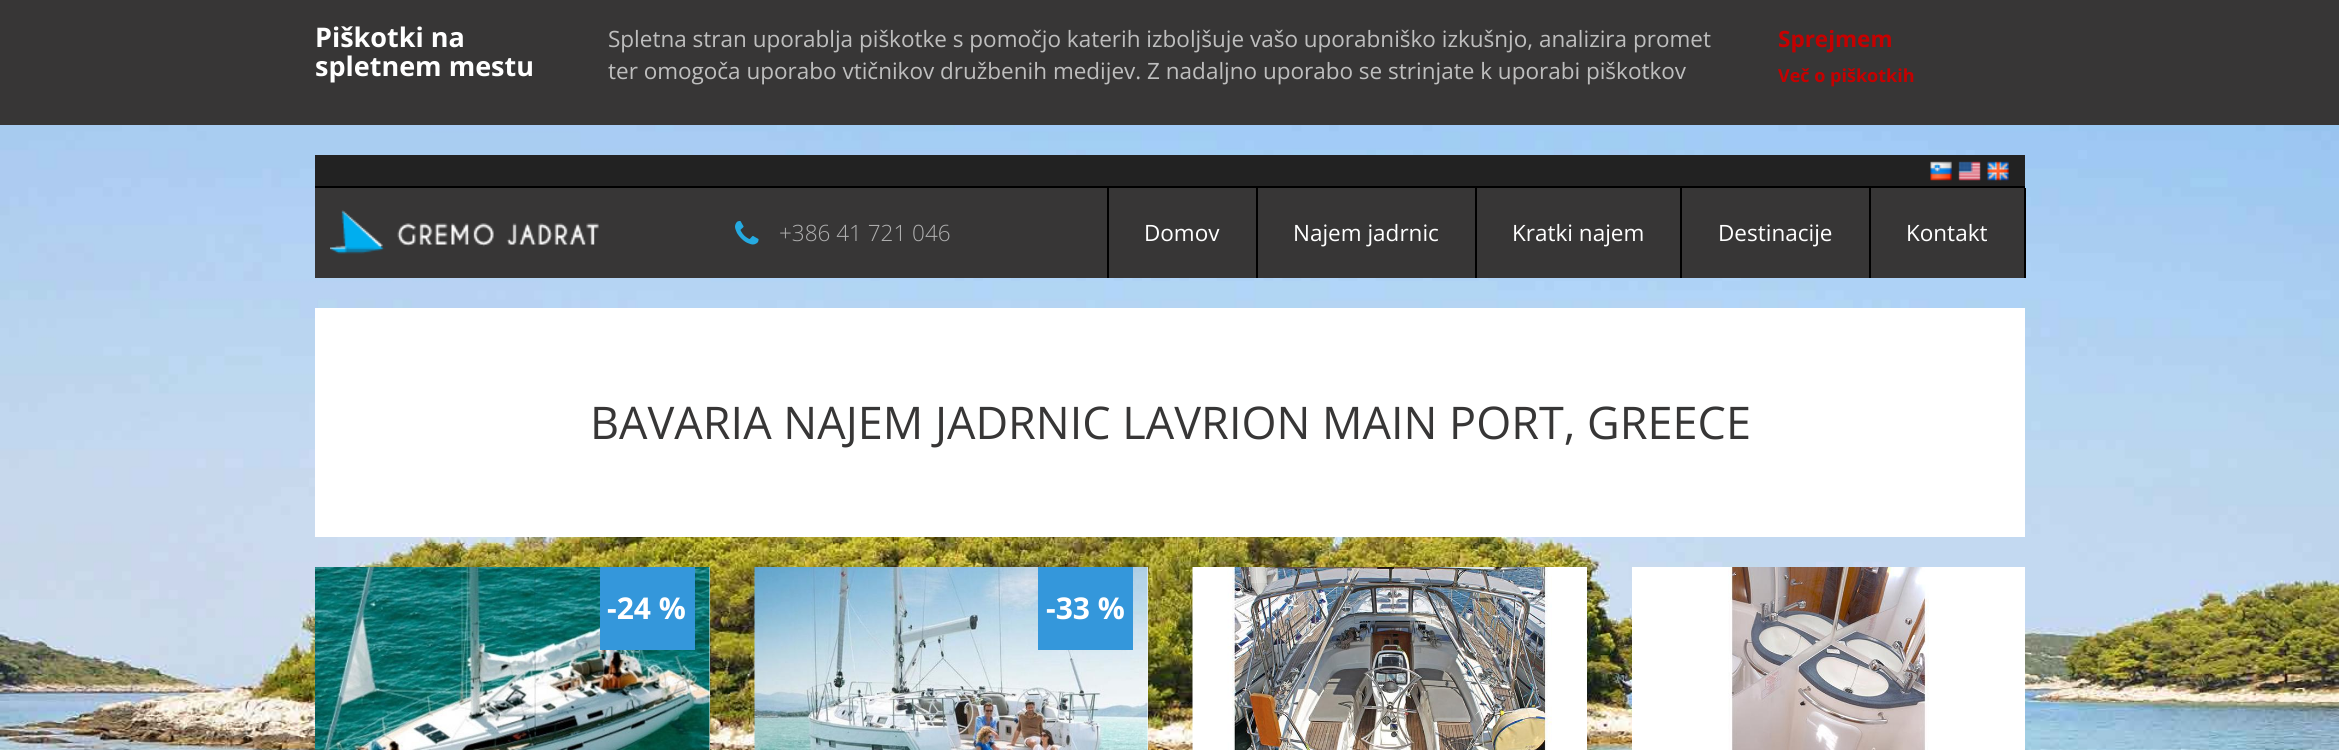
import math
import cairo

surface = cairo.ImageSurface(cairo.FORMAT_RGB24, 2339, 750)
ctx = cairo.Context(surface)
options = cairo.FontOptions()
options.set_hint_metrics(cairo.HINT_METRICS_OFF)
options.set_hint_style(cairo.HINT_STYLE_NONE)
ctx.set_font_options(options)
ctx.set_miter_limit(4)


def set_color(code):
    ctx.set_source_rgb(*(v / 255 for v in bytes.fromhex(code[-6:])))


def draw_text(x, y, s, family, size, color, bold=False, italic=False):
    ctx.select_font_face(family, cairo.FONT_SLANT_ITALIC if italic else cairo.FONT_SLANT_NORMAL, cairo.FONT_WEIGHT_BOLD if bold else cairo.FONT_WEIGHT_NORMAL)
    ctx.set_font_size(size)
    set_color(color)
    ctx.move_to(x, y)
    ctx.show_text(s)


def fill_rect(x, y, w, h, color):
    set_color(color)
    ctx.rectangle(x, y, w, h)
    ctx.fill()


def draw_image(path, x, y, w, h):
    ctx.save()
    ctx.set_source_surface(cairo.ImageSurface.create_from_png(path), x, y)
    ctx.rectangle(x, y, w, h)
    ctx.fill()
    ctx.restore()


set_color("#ffffff")
ctx.paint()
draw_image("assets/img1.png", 0, 125, 2339, 625)
fill_rect(0, 0, 2339, 125, "#373636")
draw_text(315, 47, "Piškotki na", "Open Sans", 27, "#ffffff", bold=True)
draw_text(315, 76, "spletnem mestu", "Open Sans", 27, "#ffffff", bold=True)
draw_text(608, 47, "Spletna stran uporablja piškotke s pomočjo katerih izboljšuje vašo uporabniško izkušnjo, analizira promet", "Open Sans", 22.5, "#bebebe")
draw_text(608, 79, "ter omogoča uporabo vtičnikov družbenih medijev. Z nadaljno uporabo se strinjate k uporabi piškotkov", "Open Sans", 22.5, "#bebebe")
draw_text(1778, 47, "Sprejmem", "Open Sans", 22.5, "#c60000", bold=True)
draw_text(1778, 82, "Več o piškotkih", "Open Sans", 18, "#c60000", bold=True)
fill_rect(315, 155, 1710, 31, "#222222")
fill_rect(315, 186, 1710, 2, "#000000")
draw_image("assets/img2.png", 1930, 161, 22, 20)
draw_image("assets/img3.png", 1958, 161, 23, 20)
draw_image("assets/img4.png", 1987, 161, 22, 20)
fill_rect(315, 188, 1709, 90, "#373636")
draw_image("assets/img5.png", 330, 210, 269, 44)
draw_image("assets/img6.png", 735, 221, 24, 24)
draw_text(779, 241, "+386 41 721 046", "Open Sans Light", 22.5, "#afafaf")
fill_rect(1256, 188, 2, 90, "#000000")
fill_rect(1107, 188, 2, 90, "#000000")
draw_text(1144, 241, "Domov", "Open Sans", 22.5, "#ffffff")
fill_rect(1475, 188, 2, 90, "#000000")
draw_text(1293, 241, "Najem jadrnic", "Open Sans", 22.5, "#ffffff")
fill_rect(1680, 188, 2, 90, "#000000")
draw_text(1512, 241, "Kratki najem", "Open Sans", 22.5, "#ffffff")
fill_rect(1869, 188, 2, 90, "#000000")
draw_text(1718, 241, "Destinacije", "Open Sans", 22.5, "#ffffff")
fill_rect(2024, 188, 2, 90, "#000000")
draw_text(1906, 241, "Kontakt", "Open Sans", 22.5, "#ffffff")
fill_rect(315, 308, 1710, 229, "#ffffff")
draw_text(590, 439, "BAVARIA NAJEM JADRNIC LAVRION MAIN PORT, GREECE", "Open Sans", 45, "#373636")
fill_rect(709, 567, 1, 183, "#ffffff")
draw_image("assets/img7.png", 315, 567, 395, 183)
fill_rect(600, 567, 95, 83, "#3497db")
draw_text(607, 619, "-24 %", "Open Sans", 30, "#ffffff", bold=True)
fill_rect(1147, 567, 1, 183, "#ffffff")
draw_image("assets/img8.png", 754, 567, 394, 183)
fill_rect(1038, 567, 95, 83, "#3497db")
draw_text(1046, 619, "-33 %", "Open Sans", 30, "#ffffff", bold=True)
fill_rect(1552, 567, 35, 183, "#ffffff")
draw_image("assets/img9.png", 1192, 567, 360, 183)
fill_rect(1632, 567, 393, 183, "#ffffff")
draw_image("assets/img10.png", 1728, 567, 201, 183)
surface.write_to_png("output.png")
